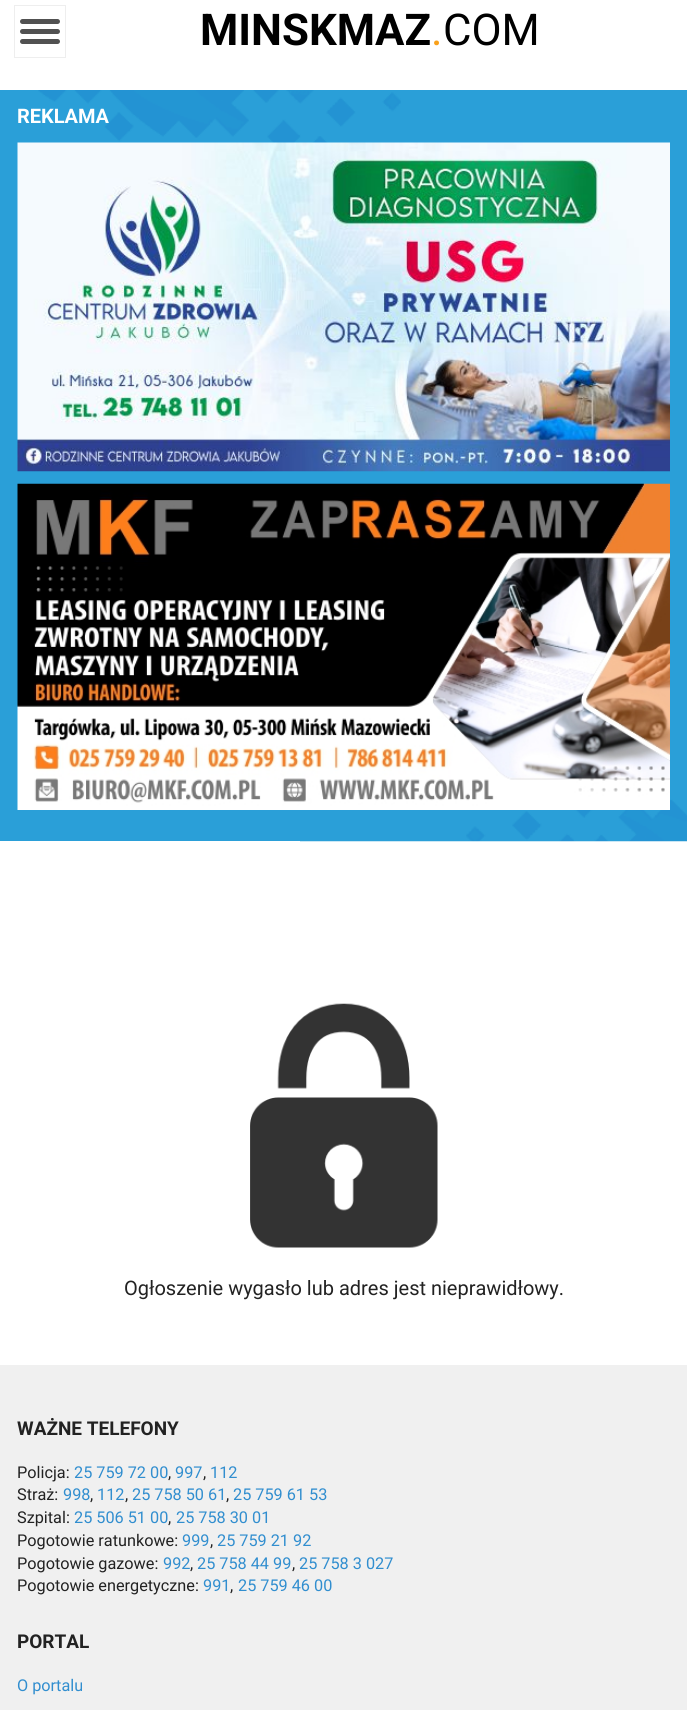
import math
import cairo

surface = cairo.ImageSurface(cairo.FORMAT_RGB24, 687, 1710)
ctx = cairo.Context(surface)
options = cairo.FontOptions()
options.set_hint_metrics(cairo.HINT_METRICS_OFF)
options.set_hint_style(cairo.HINT_STYLE_NONE)
ctx.set_font_options(options)
ctx.set_miter_limit(4)


def set_color(code):
    ctx.set_source_rgb(*(v / 255 for v in bytes.fromhex(code[-6:])))


def draw_text(x, y, s, family, size, color, bold=False, italic=False):
    ctx.select_font_face(family, cairo.FONT_SLANT_ITALIC if italic else cairo.FONT_SLANT_NORMAL, cairo.FONT_WEIGHT_BOLD if bold else cairo.FONT_WEIGHT_NORMAL)
    ctx.set_font_size(size)
    set_color(color)
    ctx.move_to(x, y)
    ctx.show_text(s)


def fill_rect(x, y, w, h, color):
    set_color(color)
    ctx.rectangle(x, y, w, h)
    ctx.fill()


def rounded_rect(x, y, w, h, r):
    ctx.new_sub_path()
    for i, (u, v) in enumerate([(x + w - r, y + h - r), (x + r, y + h - r), (x + r, y + r), (x + w - r, y + r)]):
        ctx.arc(u, v, r, i * math.pi / 2, (i + 1) * math.pi / 2)
    ctx.close_path()


def draw_image(path, x, y, w, h):
    ctx.save()
    ctx.set_source_surface(cairo.ImageSurface.create_from_png(path), x, y)
    ctx.rectangle(x, y, w, h)
    ctx.fill()
    ctx.restore()


set_color("#ffffff")
ctx.paint()
ctx.rectangle(14.5, 5.5, 51, 52)
set_color("#eeeeee")
ctx.set_line_width(1)
ctx.stroke()
set_color("#515151")
rounded_rect(20, 19, 40, 5, 2.5)
ctx.fill()
rounded_rect(20, 29, 40, 5, 2.5)
ctx.fill()
rounded_rect(20, 39, 40, 5, 2.5)
ctx.fill()
draw_text(200, 45, "MINSKMAZ", "Roboto", 43.75, "#000000", bold=True)
draw_text(431, 45, ".", "Roboto", 43.75, "#f9a11b")
draw_text(443, 45, "COM", "Roboto", 43.75, "#000000")
fill_rect(0, 90, 687, 751, "#2a9fd8")
draw_image("assets/img1.png", 38, 90, 363, 53)
draw_text(17, 123, "REKLAMA", "Roboto", 20, "#ffffff", bold=True)
draw_image("assets/img2.png", 17, 142, 653, 330)
draw_image("assets/img4.png", 300, 762, 387, 80)
draw_image("assets/img3.png", 17, 483, 653, 327)
draw_image("assets/img5.png", 250, 1003, 188, 245)
draw_text(124, 1295, "Ogłoszenie wygasło lub adres jest nieprawidłowy.", "Roboto", 20, "#222222")
fill_rect(0, 1365, 687, 345, "#f0f0f0")
draw_text(17, 1435, "WAŻNE TELEFONY", "Roboto", 19, "#222222", bold=True)
draw_text(17, 1478, "Policja:", "Roboto", 16.25, "#222222")
draw_text(74, 1478, "25 759 72 00", "Roboto", 16.25, "#318ecf")
draw_text(175, 1478, "997", "Roboto", 16.25, "#318ecf")
draw_text(210, 1478, "112", "Roboto", 16.25, "#318ecf")
draw_text(168, 1478, ",", "Roboto", 16.25, "#222222")
draw_text(203, 1478, ",", "Roboto", 16.25, "#222222")
draw_text(17, 1500, "Straż:", "Roboto", 16.25, "#222222")
draw_text(63, 1500, "998", "Roboto", 16.25, "#318ecf")
draw_text(90, 1500, ",", "Roboto", 16.25, "#222222")
draw_text(97, 1500, "112", "Roboto", 16.25, "#318ecf")
draw_text(125, 1500, ",", "Roboto", 16.25, "#222222")
draw_text(132, 1500, "25 758 50 61", "Roboto", 16.25, "#318ecf")
draw_text(226, 1500, ",", "Roboto", 16.25, "#222222")
draw_text(233, 1500, "25 759 61 53", "Roboto", 16.25, "#318ecf")
draw_text(17, 1523, "Szpital:", "Roboto", 16.25, "#222222")
draw_text(74, 1523, "25 506 51 00", "Roboto", 16.25, "#318ecf")
draw_text(168, 1523, ",", "Roboto", 16.25, "#222222")
draw_text(176, 1523, "25 758 30 01", "Roboto", 16.25, "#318ecf")
draw_text(17, 1546, "Pogotowie ratunkowe:", "Roboto", 16.25, "#222222")
draw_text(182, 1546, "999", "Roboto", 16.25, "#318ecf")
draw_text(210, 1546, ",", "Roboto", 16.25, "#222222")
draw_text(217, 1546, "25 759 21 92", "Roboto", 16.25, "#318ecf")
draw_text(17, 1569, "Pogotowie gazowe:", "Roboto", 16.25, "#222222")
draw_text(163, 1569, "992", "Roboto", 16.25, "#318ecf")
draw_text(190, 1569, ",", "Roboto", 16.25, "#222222")
draw_text(197, 1569, "25 758 44 99", "Roboto", 16.25, "#318ecf")
draw_text(292, 1569, ",", "Roboto", 16.25, "#222222")
draw_text(299, 1569, "25 758 3 027", "Roboto", 16.25, "#318ecf")
draw_text(17, 1591, "Pogotowie energetyczne:", "Roboto", 16.25, "#222222")
draw_text(203, 1591, "991", "Roboto", 16.25, "#318ecf")
draw_text(230, 1591, ",", "Roboto", 16.25, "#222222")
draw_text(238, 1591, "25 759 46 00", "Roboto", 16.25, "#318ecf")
draw_text(17, 1648, "PORTAL", "Roboto", 19, "#222222", bold=True)
draw_text(17, 1691, "O portalu", "Roboto", 16.25, "#318ecf")
surface.write_to_png("output.png")
